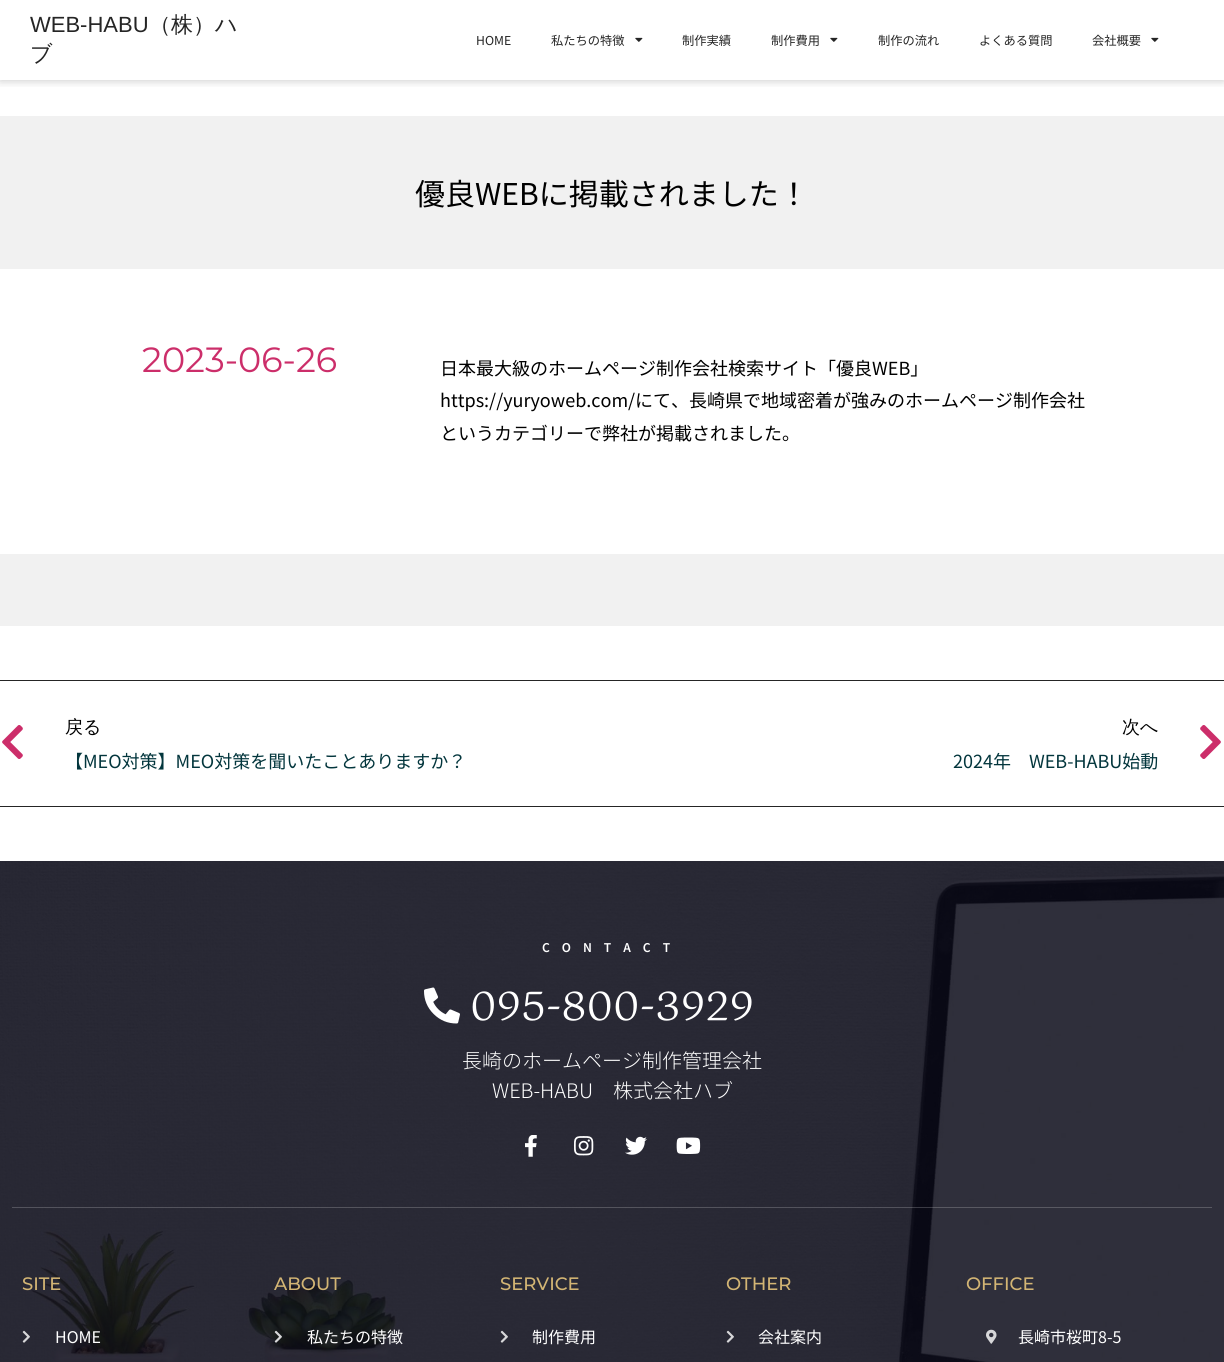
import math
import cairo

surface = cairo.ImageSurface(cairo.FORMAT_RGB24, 1224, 1362)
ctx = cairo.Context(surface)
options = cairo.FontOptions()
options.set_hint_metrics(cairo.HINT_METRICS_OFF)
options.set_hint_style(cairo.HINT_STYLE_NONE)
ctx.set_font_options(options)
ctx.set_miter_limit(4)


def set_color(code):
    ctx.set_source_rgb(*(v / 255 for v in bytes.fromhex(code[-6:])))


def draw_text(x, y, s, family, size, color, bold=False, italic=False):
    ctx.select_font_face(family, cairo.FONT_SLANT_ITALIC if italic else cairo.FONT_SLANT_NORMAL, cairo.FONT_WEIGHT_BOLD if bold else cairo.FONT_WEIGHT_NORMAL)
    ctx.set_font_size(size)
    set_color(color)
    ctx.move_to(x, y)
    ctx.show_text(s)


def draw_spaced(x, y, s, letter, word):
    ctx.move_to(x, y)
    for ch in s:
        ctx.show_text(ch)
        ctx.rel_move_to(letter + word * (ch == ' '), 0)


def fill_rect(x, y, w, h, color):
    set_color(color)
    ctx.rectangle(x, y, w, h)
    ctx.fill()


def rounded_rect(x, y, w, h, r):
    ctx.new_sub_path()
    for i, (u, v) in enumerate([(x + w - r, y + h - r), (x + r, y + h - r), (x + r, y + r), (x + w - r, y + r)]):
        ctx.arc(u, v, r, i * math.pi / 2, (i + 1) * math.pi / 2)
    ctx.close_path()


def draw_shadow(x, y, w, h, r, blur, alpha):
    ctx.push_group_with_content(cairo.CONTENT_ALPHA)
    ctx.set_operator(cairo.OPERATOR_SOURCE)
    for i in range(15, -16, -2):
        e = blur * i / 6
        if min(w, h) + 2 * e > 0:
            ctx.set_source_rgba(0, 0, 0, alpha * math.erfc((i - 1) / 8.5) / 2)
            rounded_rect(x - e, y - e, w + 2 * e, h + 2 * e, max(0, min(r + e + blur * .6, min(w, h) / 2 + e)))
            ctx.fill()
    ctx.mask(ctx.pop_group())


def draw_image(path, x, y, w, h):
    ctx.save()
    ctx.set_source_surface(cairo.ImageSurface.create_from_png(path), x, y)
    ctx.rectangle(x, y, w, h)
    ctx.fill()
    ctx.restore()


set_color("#ffffff")
ctx.paint()
ctx.save()
ctx.rectangle(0, 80, 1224, 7)
ctx.clip()
set_color("#000000")
draw_shadow(0, 0, 1224, 80, 0, 5, 0.24)
ctx.restore()
draw_text(30, 32, "WEB-HABU", "Liberation Sans", 22, "#252525")
draw_text(149, 32, "（株）ハ", "WenQuanYi Zen Hei Medium", 22, "#252525")
draw_text(30, 61, "ブ", "WenQuanYi Zen Hei Medium", 22, "#252525")
draw_text(476, 45, "HOME", "Noto Sans JP", 12.25, "#252525")
draw_text(551, 45, "私たちの特徴", "Noto Sans JP", 12.25, "#252525")
draw_image("assets/img1.png", 635, 37, 8, 5)
draw_text(682, 45, "制作実績", "Noto Sans JP", 12.25, "#252525")
draw_text(771, 45, "制作費用", "Noto Sans JP", 12.25, "#252525")
draw_image("assets/img1.png", 830, 37, 8, 5)
draw_text(878, 45, "制作の流れ", "Noto Sans JP", 12.25, "#252525")
draw_text(979, 45, "よくある質問", "Noto Sans JP", 12.25, "#252525")
draw_text(1092, 45, "会社概要", "Noto Sans JP", 12.25, "#252525")
draw_image("assets/img1.png", 1151, 37, 8, 5)
fill_rect(0, 116, 1224, 153, "#f1f1f1")
draw_text(415, 205, "優良WEBに掲載されました！", "Noto Sans JP", 30, "#000000")
fill_rect(0, 554, 1224, 72, "#f1f1f1")
draw_text(142, 372, "2023-06-26", "Montserrat", 35, "#cc2e6a")
draw_text(440, 375, "日本最大級のホームページ制作会社検索サイト「優良WEB」", "Noto Sans JP", 18, "#000000")
draw_text(440, 407, "https://yuryoweb.com/にて、長崎県で地域密着が強みのホームページ制作会社", "Noto Sans JP", 18, "#000000")
draw_text(440, 440, "というカテゴリーで弊社が掲載されました。", "Noto Sans JP", 18, "#000000")
fill_rect(0, 680, 1224, 1, "#252525")
fill_rect(0, 806, 1224, 1, "#252525")
draw_image("assets/img2.png", 2, 725, 21, 34)
draw_text(65, 733, "戻る", "WenQuanYi Zen Hei Medium", 18, "#000000")
draw_text(65, 768, "【MEO対策】MEO対策を聞いたことありますか？", "Noto Sans JP", 18, "#03363d")
draw_text(1122, 733, "次へ", "WenQuanYi Zen Hei Medium", 18, "#000000")
draw_text(953, 768, "2024年　WEB-HABU始動", "Noto Sans JP", 18, "#03363d")
draw_image("assets/img3.png", 1200, 725, 21, 34)
draw_image("assets/img4.png", 0, 861, 1224, 501)
ctx.select_font_face("Noto Sans JP SemiBold")
ctx.set_font_size(12)
set_color("#ffffff")
draw_spaced(542, 952, "CONTACT", 12, 0)
draw_image("assets/img5.png", 424, 987, 36, 37)
draw_text(470, 1020, "095-800-3929", "Gotu", 40, "#ffffff")
ctx.set_source_rgba(1, 1, 1, 0.2)
ctx.rectangle(12, 1207, 1200, 1)
ctx.fill()
draw_text(462, 1068, "長崎のホームページ制作管理会社", "Noto Sans JP Light", 20, "#ffffff")
draw_text(492, 1098, "WEB-HABU　株式会社ハブ", "Noto Sans JP Light", 20, "#ffffff")
draw_image("assets/img6.png", 525, 1135, 12, 22)
draw_image("assets/img7.png", 574, 1136, 20, 20)
draw_image("assets/img8.png", 625, 1136, 22, 19)
draw_image("assets/img9.png", 676, 1137, 25, 17)
draw_text(22, 1290, "SITE", "Montserrat Medium", 18, "#d3b574")
draw_image("assets/img10.png", 22, 1330, 8, 13)
draw_text(55, 1343, "HOME", "Noto Sans JP", 16, "#ffffff")
draw_text(274, 1290, "ABOUT", "Montserrat Medium", 18, "#d3b574")
draw_image("assets/img11.png", 274, 1330, 8, 13)
draw_text(307, 1343, "私たちの特徴", "Noto Sans JP", 16, "#ffffff")
draw_text(500, 1290, "SERVICE", "Montserrat Medium", 18, "#d3b574")
draw_image("assets/img12.png", 500, 1330, 8, 13)
draw_text(532, 1343, "制作費用", "Noto Sans JP", 16, "#ffffff")
draw_text(726, 1290, "OTHER", "Montserrat Medium", 18, "#d3b574")
draw_image("assets/img13.png", 726, 1330, 8, 13)
draw_text(758, 1343, "会社案内", "Noto Sans JP", 16, "#ffffff")
draw_text(966, 1290, "OFFICE", "Montserrat Medium", 18, "#d3b574")
draw_image("assets/img14.png", 986, 1329, 11, 15)
draw_text(1018, 1343, "長崎市桜町8-5", "Noto Sans JP", 16, "#ffffff")
surface.write_to_png("output.png")
